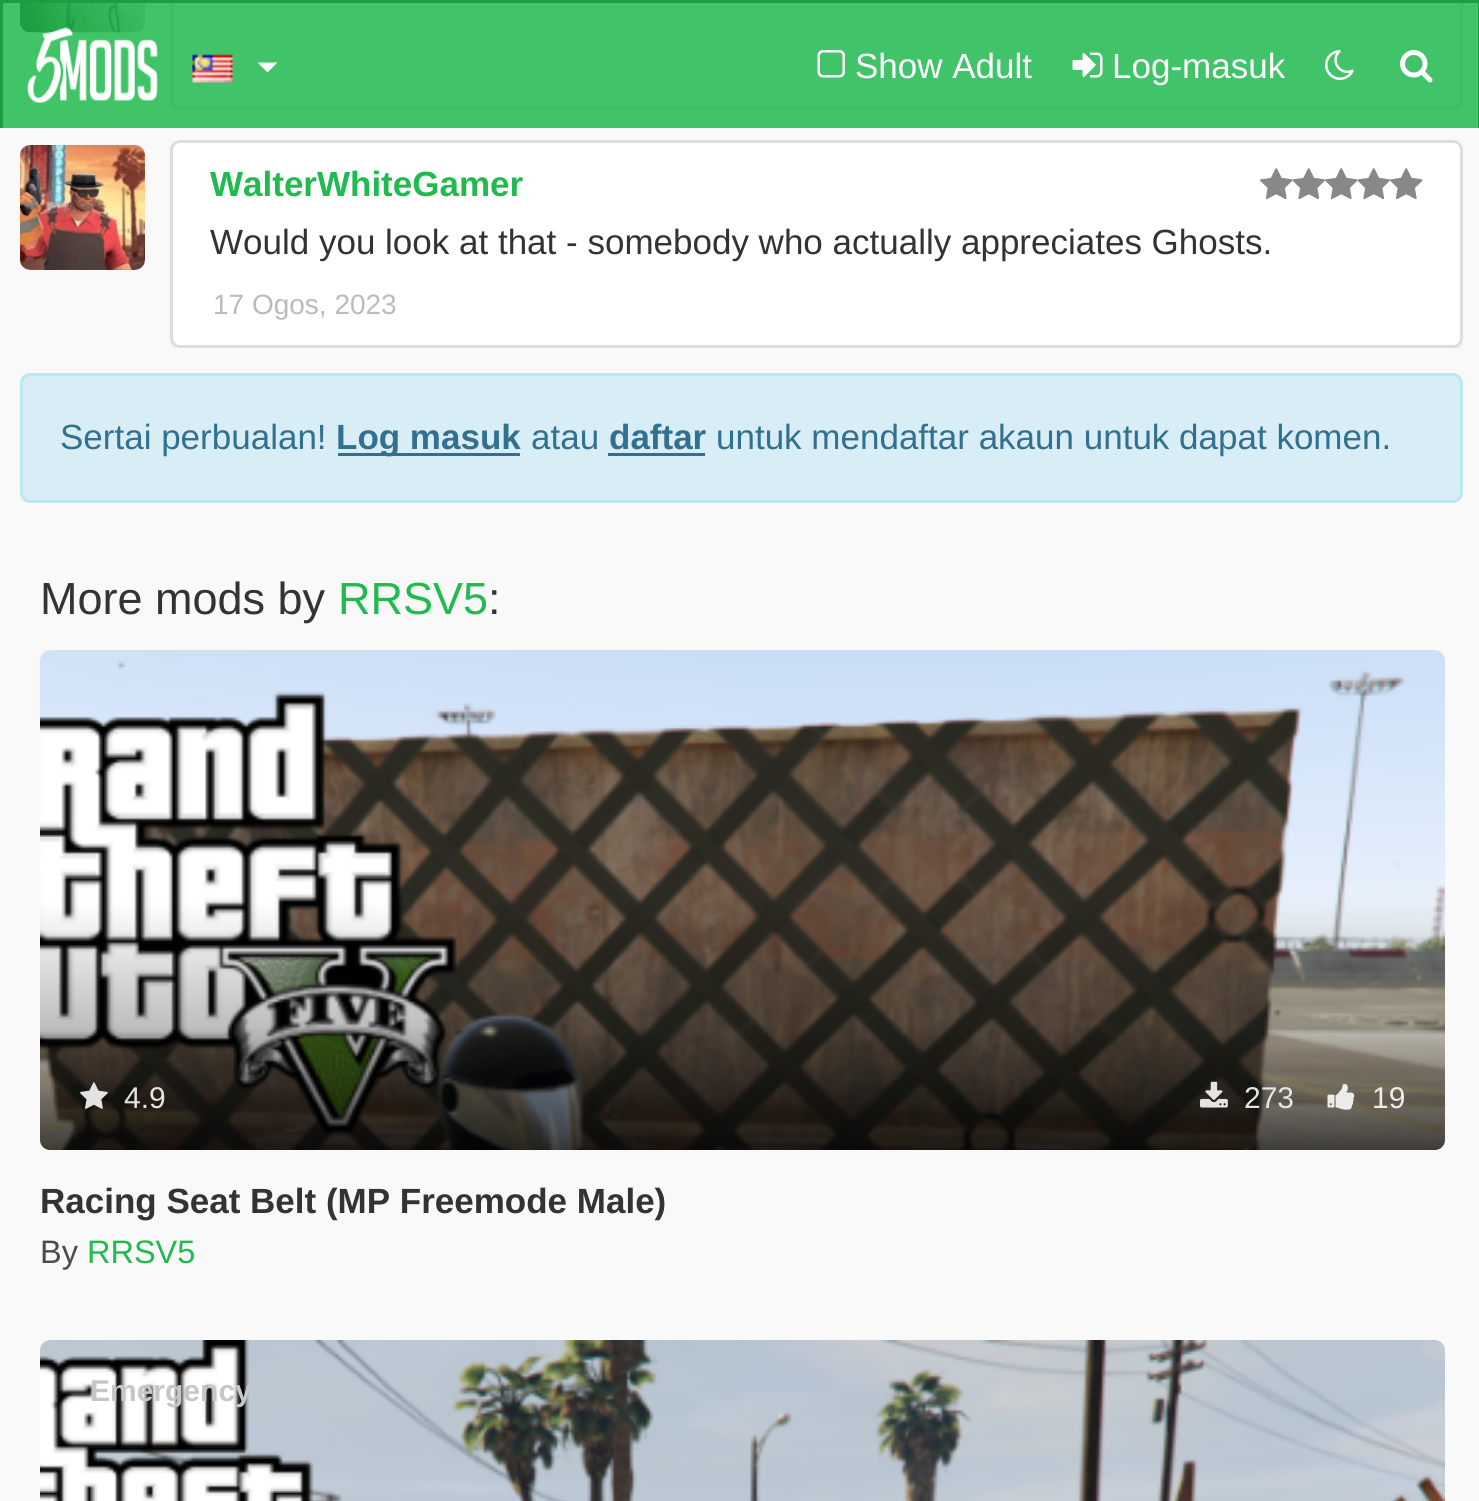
import math
import cairo

surface = cairo.ImageSurface(cairo.FORMAT_RGB24, 1479, 1501)
ctx = cairo.Context(surface)
options = cairo.FontOptions()
options.set_hint_metrics(cairo.HINT_METRICS_OFF)
options.set_hint_style(cairo.HINT_STYLE_NONE)
ctx.set_font_options(options)
ctx.set_miter_limit(4)


def set_color(code):
    ctx.set_source_rgb(*(v / 255 for v in bytes.fromhex(code[-6:])))


def draw_text(x, y, s, family, size, color, bold=False, italic=False):
    ctx.select_font_face(family, cairo.FONT_SLANT_ITALIC if italic else cairo.FONT_SLANT_NORMAL, cairo.FONT_WEIGHT_BOLD if bold else cairo.FONT_WEIGHT_NORMAL)
    ctx.set_font_size(size)
    set_color(color)
    ctx.move_to(x, y)
    ctx.show_text(s)


def fill_rect(x, y, w, h, color):
    set_color(color)
    ctx.rectangle(x, y, w, h)
    ctx.fill()


def rounded_rect(x, y, w, h, r):
    ctx.new_sub_path()
    for i, (u, v) in enumerate([(x + w - r, y + h - r), (x + r, y + h - r), (x + r, y + r), (x + w - r, y + r)]):
        ctx.arc(u, v, r, i * math.pi / 2, (i + 1) * math.pi / 2)
    ctx.close_path()


def draw_shadow(x, y, w, h, r, blur, alpha):
    ctx.push_group_with_content(cairo.CONTENT_ALPHA)
    ctx.set_operator(cairo.OPERATOR_SOURCE)
    for i in range(15, -16, -2):
        e = blur * i / 6
        if min(w, h) + 2 * e > 0:
            ctx.set_source_rgba(0, 0, 0, alpha * math.erfc((i - 1) / 8.5) / 2)
            rounded_rect(x - e, y - e, w + 2 * e, h + 2 * e, max(0, min(r + e + blur * .6, min(w, h) / 2 + e)))
            ctx.fill()
    ctx.mask(ctx.pop_group())


def draw_image(path, x, y, w, h):
    ctx.save()
    ctx.set_source_surface(cairo.ImageSurface.create_from_png(path), x, y)
    ctx.rectangle(x, y, w, h)
    ctx.fill()
    ctx.restore()


set_color("#f9f9f9")
ctx.paint()
fill_rect(3, 3, 1475, 125, "#41c368")
ctx.save()
ctx.rectangle(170, 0, 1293, 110)
ctx.clip()
set_color("#1b9e42")
draw_shadow(170, -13, 1293, 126, 10, 1, 0.05)
ctx.restore()
set_color("#41c469")
rounded_rect(171.5, -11.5, 1290, 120, 8.5)
ctx.fill_preserve()
set_color("#3cbf63")
ctx.set_line_width(3)
ctx.stroke()
fill_rect(0, 0, 1479, 3, "#1b9e42")
fill_rect(1478, 0, 1, 128, "#1b9e42")
fill_rect(0, 0, 3, 128, "#1b9e42")
draw_image("assets/img7.png", 20, 3, 125, 30)
draw_image("assets/img1.png", 27, 27, 131, 76)
draw_image("assets/img2.png", 192, 54, 41, 29)
set_color("#ffffff")
ctx.new_path()
ctx.move_to(257.5, 62.5)
ctx.line_to(277.5, 62.5)
ctx.line_to(267.5, 72.5)
ctx.close_path()
ctx.fill()
draw_image("assets/img3.png", 817, 50, 28, 28)
draw_text(855, 78, "Show Adult", "Liberation Sans", 35, "#ffffff")
draw_image("assets/img4.png", 1072, 52, 31, 26)
draw_text(1112, 78, "Log-masuk", "Liberation Sans", 35, "#ffffff")
draw_image("assets/img5.png", 1325, 50, 29, 30)
draw_image("assets/img6.png", 1400, 50, 33, 33)
draw_image("assets/img8.png", 20, 145, 125, 125)
ctx.save()
ctx.rectangle(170, 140, 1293, 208)
ctx.clip()
set_color("#000000")
draw_shadow(170, 143, 1293, 207, 10, 1, 0.05)
ctx.restore()
rounded_rect(171.5, 141.5, 1290, 205, 8.5)
ctx.fill_preserve()
set_color("#dddddd")
ctx.stroke()
draw_text(210, 196, "WalterWhiteGamer", "Liberation Sans", 35, "#20ba4e", bold=True)
draw_image("assets/img9.png", 1260, 168, 33, 32)
draw_image("assets/img10.png", 1292, 168, 33, 32)
draw_image("assets/img9.png", 1325, 168, 33, 32)
draw_image("assets/img10.png", 1357, 168, 33, 32)
draw_image("assets/img9.png", 1390, 168, 33, 32)
draw_text(210, 254, "Would you look at that - somebody who actually appreciates Ghosts.", "Liberation Sans", 35, "#333333")
draw_text(213, 314, "17 Ogos, 2023", "Liberation Sans", 28, "#bbbbbb")
set_color("#d9edf7")
rounded_rect(21.5, 374.5, 1440, 127, 8.5)
ctx.fill_preserve()
set_color("#bce8f1")
ctx.stroke()
draw_text(60, 449, "Sertai perbualan!", "Liberation Sans", 35, "#31708f")
fill_rect(338, 453, 182, 3, "#31708f")
draw_text(336, 449, "Log masuk", "Liberation Sans", 35, "#31708f", bold=True)
draw_text(531, 449, "atau", "Liberation Sans", 35, "#31708f")
draw_text(609, 449, "daftar", "Liberation Sans", 35, "#31708f", bold=True)
fill_rect(608, 453, 97, 3, "#31708f")
draw_text(716, 449, "untuk mendaftar akaun untuk dapat komen.", "Liberation Sans", 35, "#31708f")
draw_text(40, 614, "More mods by", "Liberation Sans", 45, "#333333")
draw_text(338, 614, "RRSV5", "Liberation Sans", 45, "#20ba4e")
draw_text(488, 614, ":", "Liberation Sans", 45, "#333333")
draw_image("assets/img11.png", 40, 650, 1405, 500)
gradient = cairo.LinearGradient(743, 650, 743, 1150)
gradient.add_color_stop_rgba(0.5, 0, 0, 0, 0)
gradient.add_color_stop_rgba(0.75, 0, 0, 0, 0.25)
gradient.add_color_stop_rgba(1, 0, 0, 0, 0.75)
ctx.set_source(gradient)
rounded_rect(40, 650, 1405, 500, 10)
ctx.fill()
draw_image("assets/img12.png", 80, 1082, 28, 27)
draw_text(124, 1108, "4.9", "Liberation Sans", 30, "#e4e4e3")
draw_image("assets/img13.png", 1200, 1081, 28, 27)
draw_text(1244, 1108, "273", "Liberation Sans", 30, "#e4e4e3")
draw_image("assets/img14.png", 1327, 1084, 28, 26)
draw_text(1372, 1108, "19", "Liberation Sans", 30, "#edecea")
draw_text(40, 1213, "Racing Seat Belt (MP Freemode Male)", "Liberation Sans", 35, "#333333", bold=True)
draw_text(40, 1263, "By", "Liberation Sans", 32.5, "#4b4b4b")
draw_text(87, 1263, "RRSV5", "Liberation Sans", 32.5, "#20ba4e")
draw_image("assets/img15.png", 40, 1340, 1405, 161)
draw_text(90, 1401, "Emergency", "Liberation Sans", 30, "#c5c6c6", bold=True)
surface.write_to_png("output.png")
